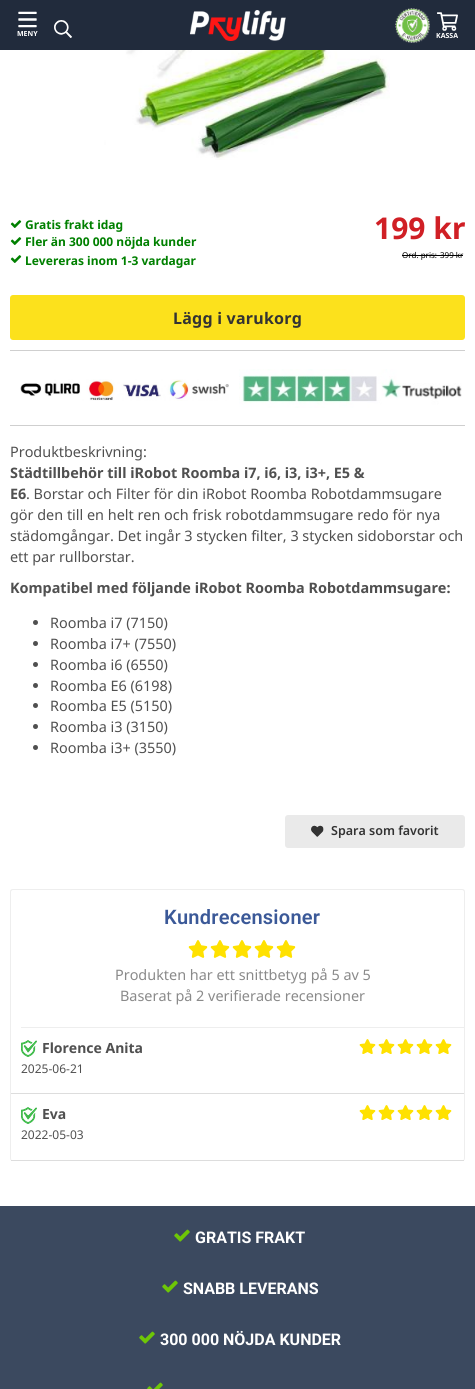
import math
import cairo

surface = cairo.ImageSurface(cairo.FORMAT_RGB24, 475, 1389)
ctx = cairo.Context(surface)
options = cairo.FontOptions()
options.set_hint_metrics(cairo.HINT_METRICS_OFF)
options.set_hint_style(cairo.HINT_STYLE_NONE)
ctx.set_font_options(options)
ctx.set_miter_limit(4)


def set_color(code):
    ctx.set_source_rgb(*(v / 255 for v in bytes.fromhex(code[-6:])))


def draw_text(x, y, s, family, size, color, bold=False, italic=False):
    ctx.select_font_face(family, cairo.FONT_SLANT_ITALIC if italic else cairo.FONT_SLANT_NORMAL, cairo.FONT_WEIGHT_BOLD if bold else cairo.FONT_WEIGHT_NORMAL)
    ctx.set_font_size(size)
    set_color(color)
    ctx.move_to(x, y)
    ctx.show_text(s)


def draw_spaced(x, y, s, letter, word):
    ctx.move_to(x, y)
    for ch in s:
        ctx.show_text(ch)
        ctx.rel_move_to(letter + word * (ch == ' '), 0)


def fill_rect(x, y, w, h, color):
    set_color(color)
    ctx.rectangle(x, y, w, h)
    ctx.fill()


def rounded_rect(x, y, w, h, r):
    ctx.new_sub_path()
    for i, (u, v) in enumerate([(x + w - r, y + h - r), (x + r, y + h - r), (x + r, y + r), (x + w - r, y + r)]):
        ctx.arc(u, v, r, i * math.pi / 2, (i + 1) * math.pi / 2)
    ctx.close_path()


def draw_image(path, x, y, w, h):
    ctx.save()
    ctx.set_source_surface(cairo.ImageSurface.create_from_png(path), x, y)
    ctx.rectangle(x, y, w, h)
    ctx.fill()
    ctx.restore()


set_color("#ffffff")
ctx.paint()
fill_rect(0, 0, 475, 50, "#212b3c")
draw_image("assets/img1.png", 18, 11, 19, 17)
draw_text(17, 36, "MENY", "Noto Sans", 7, "#ffffff", bold=True)
draw_image("assets/img2.png", 54, 20, 18, 18)
draw_image("assets/img3.png", 190, 10, 96, 31)
draw_image("assets/img4.png", 395, 8, 35, 35)
draw_image("assets/img5.png", 437, 12, 21, 19)
draw_text(436, 38, "KASSA", "Noto Sans", 7, "#ffffff", bold=True)
draw_image("assets/img6.png", 104, 50, 286, 110)
draw_image("assets/img7.png", 10, 220, 12, 8)
draw_text(25, 229, "Gratis frakt idag", "Noto Sans", 12, "#008000", bold=True)
draw_image("assets/img7.png", 10, 237, 12, 8)
draw_text(25, 246, "Fler än 300 000 nöjda kunder", "Noto Sans", 12, "#008000", bold=True)
draw_image("assets/img7.png", 10, 255, 12, 8)
draw_text(25, 265, "Levereras inom 1-3 vardagar", "Noto Sans", 12, "#008000", bold=True)
draw_text(374, 239, "199 kr", "Noto Sans", 30, "#d01f25", bold=True)
draw_text(402, 258, "Ord. pris:", "Noto Sans", 8, "#000000")
fill_rect(402, 255, 38, 1, "#000000")
draw_text(440, 258, "399 kr", "Noto Sans", 8, "#000000")
fill_rect(440, 255, 23, 1, "#000000")
set_color("#fce11c")
rounded_rect(10, 295, 455, 45, 3)
ctx.fill()
ctx.select_font_face("Noto Sans", cairo.FONT_SLANT_NORMAL, cairo.FONT_WEIGHT_BOLD)
ctx.set_font_size(16)
set_color("#333333")
draw_spaced(173, 324, "Lägg i varukorg", 0.25, 0)
fill_rect(10, 350, 455, 1, "#cfcfcf")
draw_image("assets/img8.png", 20, 379, 209, 22)
draw_image("assets/img9.png", 239, 369, 223, 39)
fill_rect(10, 425, 455, 1, "#cfcfcf")
draw_text(10, 457, "Produktbeskrivning:", "Noto Sans", 14.4, "#505050")
draw_text(10, 478, "Städtillbehör till iRobot Roomba i7, i6, i3, i3+, E5 &", "Noto Sans", 14.4, "#505050", bold=True)
draw_text(10, 499, "E6", "Noto Sans", 14.4, "#505050", bold=True)
draw_text(26, 499, ". Borstar och Filter för din iRobot Roomba Robotdammsugare", "Noto Sans", 14.4, "#505050")
draw_text(10, 520, "gör den till en helt ren och frisk robotdammsugare redo för nya", "Noto Sans", 14.4, "#505050")
draw_text(10, 541, "städomgångar. Det ingår 3 stycken filter, 3 stycken sidoborstar och", "Noto Sans", 14.4, "#505050")
draw_text(10, 562, "ett par rullborstar.", "Noto Sans", 14.4, "#505050")
draw_text(10, 593, "Kompatibel med följande iRobot Roomba Robotdammsugare:", "Noto Sans", 14.4, "#505050", bold=True)
ctx.new_path()
ctx.arc(35.5, 622.5, 2.5, 0, 2 * math.pi)
ctx.fill()
draw_text(50, 628, "Roomba i7 (7150)", "Noto Sans", 14.4, "#505050")
ctx.new_path()
ctx.arc(35.5, 643.5, 2.5, 0, 2 * math.pi)
ctx.fill()
draw_text(50, 649, "Roomba i7+ (7550)", "Noto Sans", 14.4, "#505050")
ctx.new_path()
ctx.arc(35.5, 664.5, 2.5, 0, 2 * math.pi)
ctx.fill()
draw_text(50, 670, "Roomba i6 (6550)", "Noto Sans", 14.4, "#505050")
ctx.new_path()
ctx.arc(35.5, 685.5, 2.5, 0, 2 * math.pi)
ctx.fill()
draw_text(50, 691, "Roomba E6 (6198)", "Noto Sans", 14.4, "#505050")
ctx.new_path()
ctx.arc(35.5, 705.5, 2.5, 0, 2 * math.pi)
ctx.fill()
draw_text(50, 711, "Roomba E5 (5150)", "Noto Sans", 14.4, "#505050")
ctx.new_path()
ctx.arc(35.5, 726.5, 2.5, 0, 2 * math.pi)
ctx.fill()
draw_text(50, 732, "Roomba i3 (3150)", "Noto Sans", 14.4, "#505050")
ctx.new_path()
ctx.arc(35.5, 747.5, 2.5, 0, 2 * math.pi)
ctx.fill()
draw_text(50, 753, "Roomba i3+ (3550)", "Noto Sans", 14.4, "#505050")
set_color("#eaeaea")
rounded_rect(285, 815, 180, 33, 3)
ctx.fill()
draw_image("assets/img10.png", 311, 825, 13, 12)
draw_text(331, 835, "Spara som favorit", "Noto Sans SemiBold", 12.5, "#333333")
set_color("#eeeeee")
ctx.set_fill_rule(cairo.FILL_RULE_EVEN_ODD)
ctx.new_path()
ctx.move_to(13, 889)
ctx.line_to(462, 889)
ctx.curve_to(464, 889, 465, 890, 465, 892)
ctx.line_to(465, 1158)
ctx.curve_to(465, 1160, 464, 1161, 462, 1161)
ctx.line_to(13, 1161)
ctx.curve_to(11, 1161, 10, 1160, 10, 1158)
ctx.line_to(10, 892)
ctx.curve_to(10, 890, 11, 889, 13, 889)
ctx.close_path()
ctx.move_to(13, 890)
ctx.line_to(462, 890)
ctx.curve_to(463, 890, 464, 891, 464, 892)
ctx.line_to(464, 1158)
ctx.curve_to(464, 1160, 463, 1161, 462, 1161)
ctx.line_to(13, 1161)
ctx.curve_to(12, 1161, 11, 1160, 11, 1158)
ctx.line_to(11, 892)
ctx.curve_to(11, 891, 12, 890, 13, 890)
ctx.close_path()
ctx.fill()
ctx.select_font_face("Roboto SemiBold")
ctx.set_font_size(20)
set_color("#3b5998")
draw_spaced(164, 924, "Kundrecensioner", 0.25, 0)
draw_image("assets/img11.png", 188, 940, 20, 18)
draw_image("assets/img11.png", 210, 940, 20, 18)
draw_image("assets/img11.png", 232, 940, 20, 18)
draw_image("assets/img12.png", 254, 940, 20, 18)
draw_image("assets/img11.png", 276, 940, 20, 18)
fill_rect(21, 1027, 443, 1, "#eeeeee")
draw_text(115, 980, "Produkten har ett snittbetyg på 5 av 5", "Noto Sans", 14.4, "#8a8a8a")
draw_text(120, 1001, "Baserat på 2 verifierade recensioner", "Noto Sans", 14.4, "#8a8a8a")
fill_rect(11, 1093, 453, 1, "#dddddd")
draw_image("assets/img13.png", 21, 1040, 16, 17)
draw_text(42, 1053, "Florence Anita", "Noto Sans", 14, "#505050", bold=True)
draw_text(21, 1073, "2025-06-21", "Noto Sans", 12, "#505050")
draw_image("assets/img14.png", 359, 1039, 17, 15)
draw_image("assets/img14.png", 378, 1039, 17, 15)
draw_image("assets/img14.png", 397, 1039, 17, 15)
draw_image("assets/img14.png", 416, 1039, 17, 15)
draw_image("assets/img14.png", 435, 1039, 17, 15)
fill_rect(11, 1160, 453, 1, "#dddddd")
draw_image("assets/img13.png", 21, 1107, 16, 17)
draw_text(42, 1119, "Eva", "Noto Sans", 14, "#505050", bold=True)
draw_text(21, 1139, "2022-05-03", "Noto Sans", 12, "#505050")
draw_image("assets/img14.png", 359, 1105, 17, 15)
draw_image("assets/img14.png", 378, 1105, 17, 15)
draw_image("assets/img14.png", 397, 1105, 17, 15)
draw_image("assets/img14.png", 416, 1105, 17, 15)
draw_image("assets/img14.png", 435, 1105, 17, 15)
fill_rect(0, 1206, 475, 183, "#3b495f")
draw_image("assets/img15.png", 174, 1229, 16, 13)
draw_text(195, 1243, "GRATIS FRAKT", "Roboto", 16, "#ffffff", bold=True)
draw_image("assets/img15.png", 162, 1280, 16, 13)
draw_text(183, 1294, "SNABB LEVERANS", "Roboto", 16, "#ffffff", bold=True)
draw_image("assets/img15.png", 139, 1331, 16, 13)
draw_text(160, 1345, "300 000 NÖJDA KUNDER", "Roboto", 16, "#ffffff", bold=True)
draw_image("assets/img16.png", 147, 1382, 16, 7)
surface.write_to_png("output.png")
